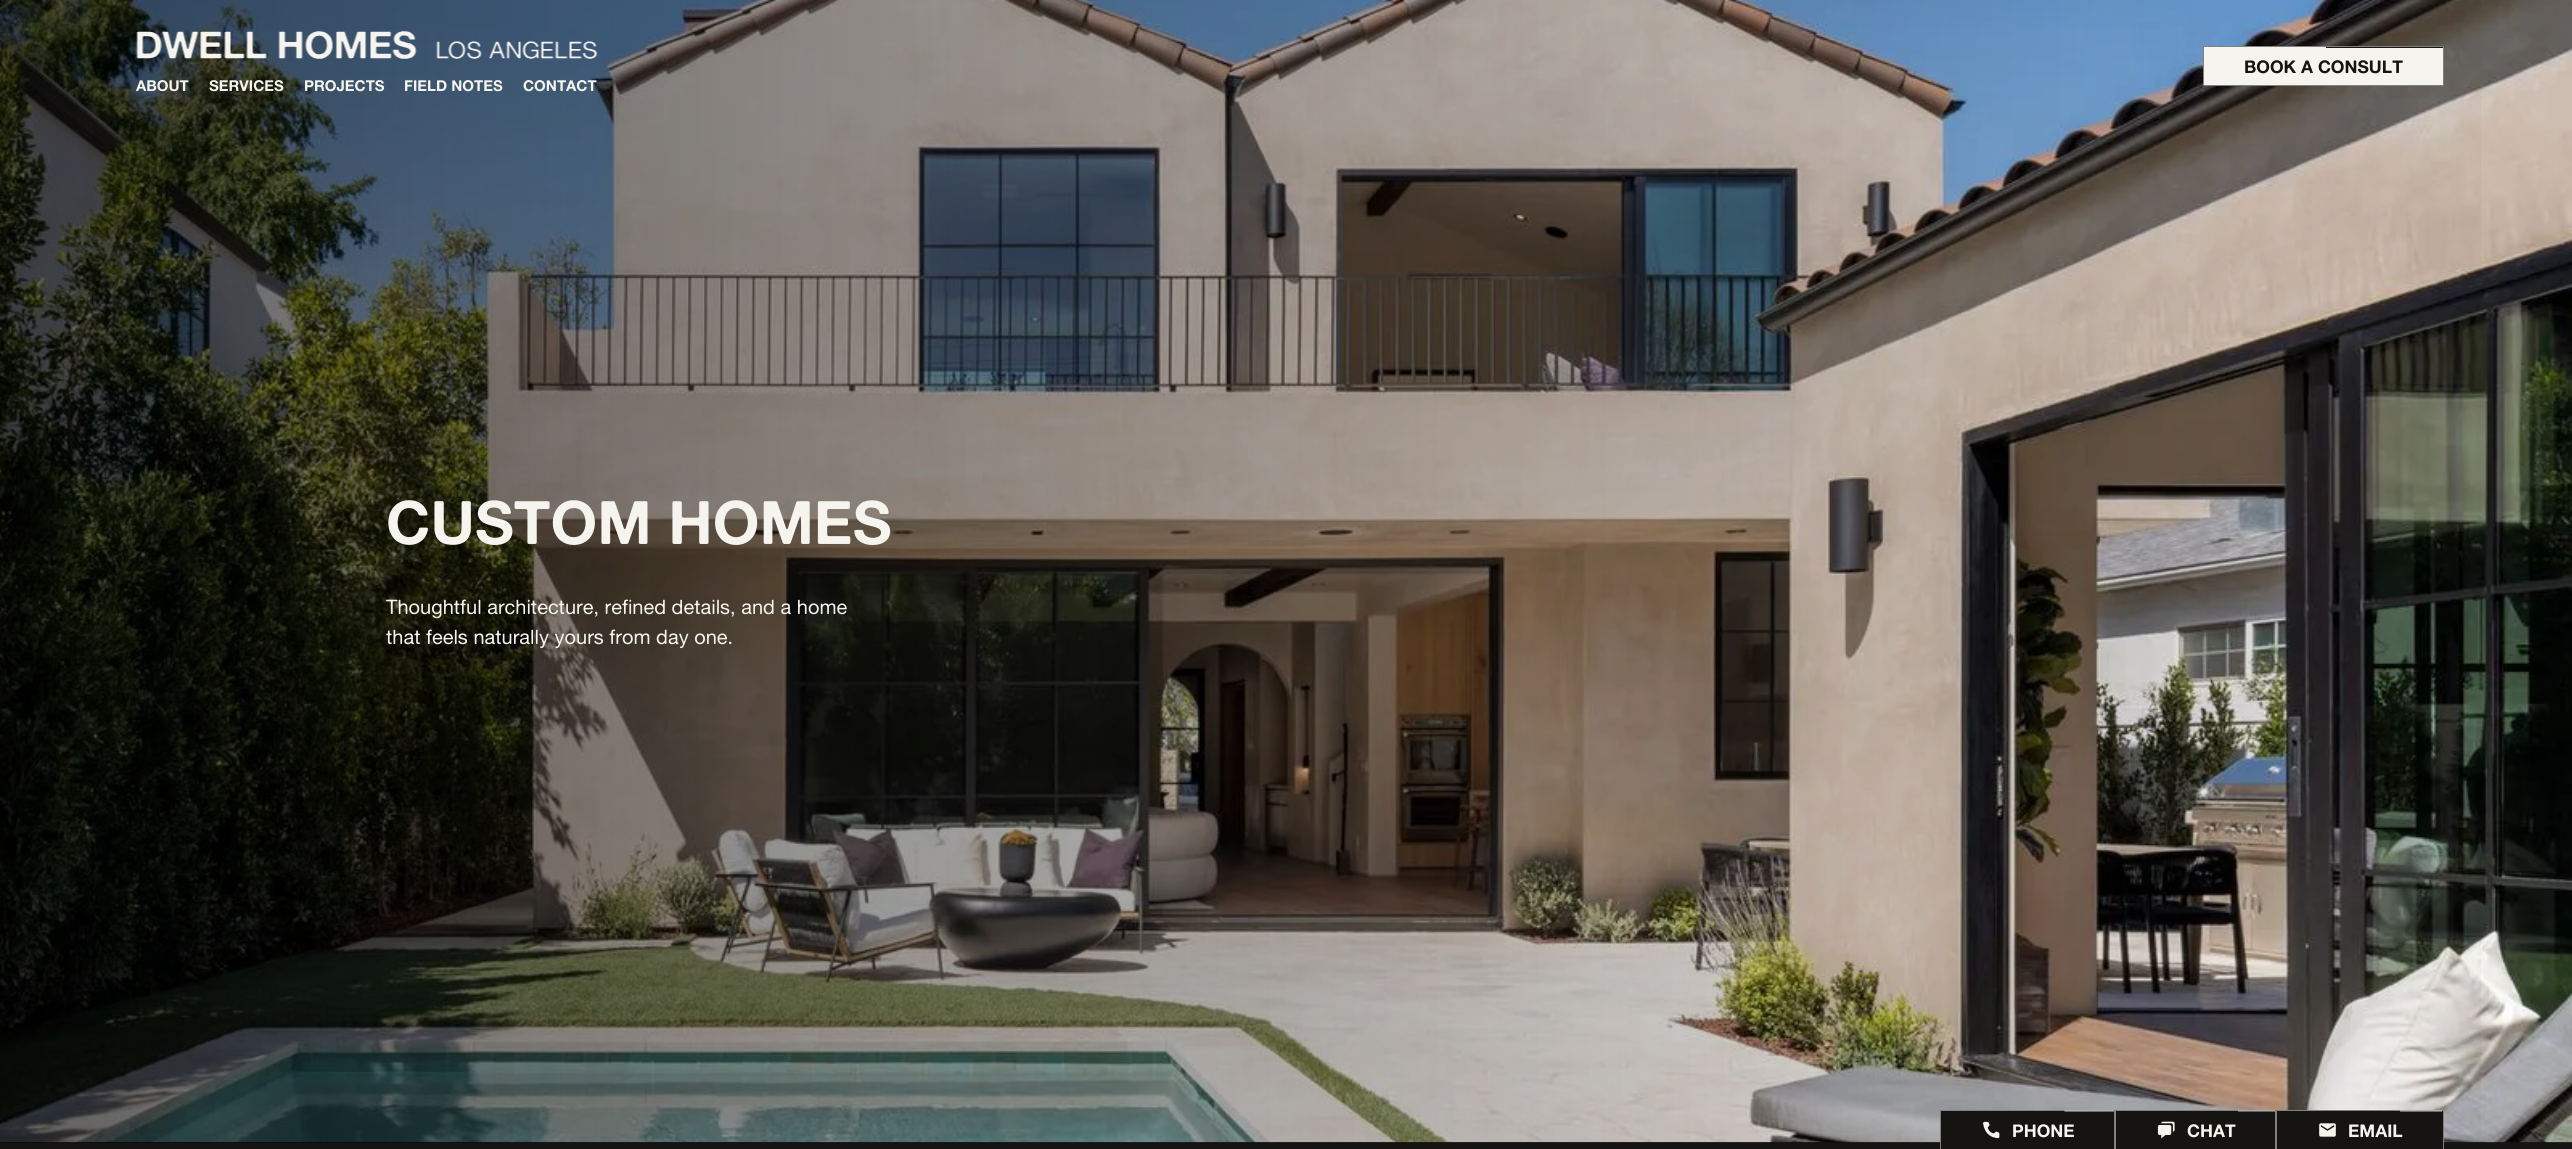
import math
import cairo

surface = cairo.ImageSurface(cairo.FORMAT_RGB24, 2572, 1149)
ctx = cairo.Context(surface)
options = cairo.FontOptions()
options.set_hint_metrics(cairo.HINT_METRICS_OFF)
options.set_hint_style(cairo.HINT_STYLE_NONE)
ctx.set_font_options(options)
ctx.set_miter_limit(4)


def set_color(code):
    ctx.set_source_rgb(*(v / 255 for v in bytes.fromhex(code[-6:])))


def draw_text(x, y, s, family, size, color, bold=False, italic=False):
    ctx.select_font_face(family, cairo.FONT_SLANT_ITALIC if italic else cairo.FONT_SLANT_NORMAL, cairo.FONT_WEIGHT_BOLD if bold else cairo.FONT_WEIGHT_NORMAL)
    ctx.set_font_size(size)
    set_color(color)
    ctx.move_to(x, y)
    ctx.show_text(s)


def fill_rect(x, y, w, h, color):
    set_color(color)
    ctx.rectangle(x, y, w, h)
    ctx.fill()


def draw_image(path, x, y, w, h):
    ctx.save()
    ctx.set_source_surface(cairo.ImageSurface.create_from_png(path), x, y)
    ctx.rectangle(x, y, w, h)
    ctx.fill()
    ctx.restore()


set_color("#151412")
ctx.paint()
draw_image("assets/img2.png", 0, 0, 2572, 1143)
gradient = cairo.LinearGradient(0, 571, 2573, 571)
gradient.add_color_stop_rgba(0, 0, 0, 0, 0.6)
gradient.add_color_stop_rgba(1, 0, 0, 0, 0)
ctx.set_source(gradient)
ctx.rectangle(0, 0, 2481, 1143)
ctx.fill()
set_color("#f6f4ef")
ctx.rectangle(2203.5, 46.5, 240, 39)
ctx.fill_preserve()
set_color("#808080")
ctx.set_line_width(1)
ctx.stroke()
fill_rect(2326, 47, 117, 1, "#171614")
draw_text(2244, 73, "BOOK A CONSULT", "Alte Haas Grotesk", 17.5, "#151412", bold=True)
draw_image("assets/img1.png", 136, 31, 462, 28)
draw_text(136, 91, "ABOUT", "Alte Haas Grotesk", 15, "#f6f4ef", bold=True)
draw_text(209, 91, "SERVICES", "Alte Haas Grotesk", 15, "#f6f4ef", bold=True)
draw_text(304, 91, "PROJECTS", "Alte Haas Grotesk", 15, "#f6f4ef", bold=True)
draw_text(404, 91, "FIELD NOTES", "Alte Haas Grotesk", 15, "#f6f4ef", bold=True)
draw_text(523, 91, "CONTACT", "Alte Haas Grotesk", 15, "#f6f4ef", bold=True)
draw_text(386, 544, "CUSTOM HOMES", "Alte Haas Grotesk", 60, "#f6f4ef", bold=True)
draw_text(386, 614, "Thoughtful architecture, refined details, and a home", "Alte Haas Grotesk", 20, "#f6f4ef")
draw_text(386, 644, "that feels naturally yours from day one.", "Alte Haas Grotesk", 20, "#f6f4ef")
fill_rect(1941, 1111, 173, 32, "#151412")
ctx.rectangle(1940.5, 1110.5, 174, 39)
set_color("#808080")
ctx.stroke()
ctx.new_path()
ctx.move_to(2064.5, 1111)
ctx.line_to(2114, 1111)
ctx.move_to(2064.5, 1111)
ctx.line_to(2114, 1111)
set_color("#f6f4ef")
ctx.set_line_width(0.8)
ctx.stroke()
draw_image("assets/img3.png", 1983, 1121, 17, 18)
draw_text(2012, 1137, "PHONE", "Alte Haas Grotesk", 17.5, "#f6f4ef", bold=True)
fill_rect(2116, 1111, 159, 32, "#151412")
ctx.rectangle(2115.5, 1110.5, 160, 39)
set_color("#808080")
ctx.set_line_width(1)
ctx.stroke()
ctx.new_path()
ctx.move_to(2238, 1111)
ctx.line_to(2275, 1111)
ctx.move_to(2238, 1111)
ctx.line_to(2275, 1111)
set_color("#f6f4ef")
ctx.set_line_width(0.7)
ctx.stroke()
draw_image("assets/img4.png", 2157, 1121, 18, 18)
draw_text(2187, 1137, "CHAT", "Alte Haas Grotesk", 17.5, "#f6f4ef", bold=True)
fill_rect(2277, 1111, 166, 32, "#151412")
ctx.rectangle(2276.5, 1110.5, 167, 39)
set_color("#808080")
ctx.set_line_width(1)
ctx.stroke()
ctx.new_path()
ctx.move_to(2400, 1111)
ctx.line_to(2442, 1111)
ctx.move_to(2400, 1111)
ctx.line_to(2442, 1111)
set_color("#f6f4ef")
ctx.set_line_width(0.8)
ctx.stroke()
draw_image("assets/img5.png", 2319, 1123, 17, 14)
draw_text(2348, 1137, "EMAIL", "Alte Haas Grotesk", 17.5, "#f6f4ef", bold=True)
surface.write_to_png("output.png")
